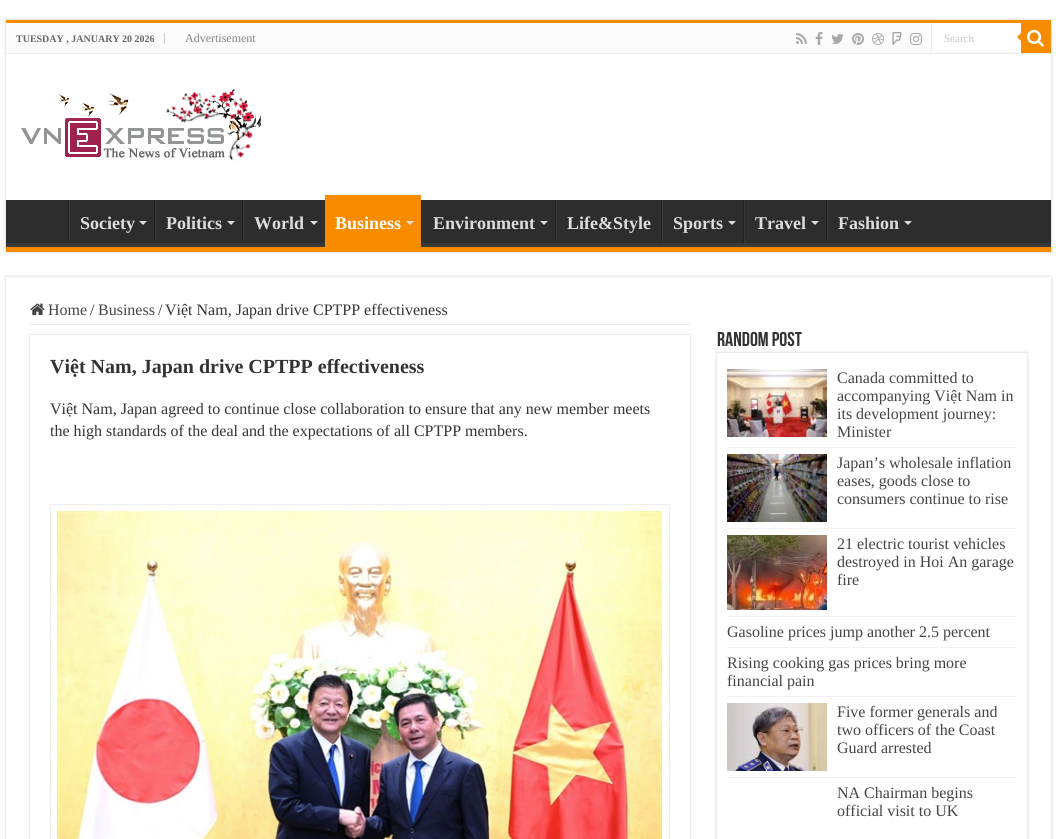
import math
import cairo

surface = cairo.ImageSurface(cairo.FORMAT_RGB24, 1056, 839)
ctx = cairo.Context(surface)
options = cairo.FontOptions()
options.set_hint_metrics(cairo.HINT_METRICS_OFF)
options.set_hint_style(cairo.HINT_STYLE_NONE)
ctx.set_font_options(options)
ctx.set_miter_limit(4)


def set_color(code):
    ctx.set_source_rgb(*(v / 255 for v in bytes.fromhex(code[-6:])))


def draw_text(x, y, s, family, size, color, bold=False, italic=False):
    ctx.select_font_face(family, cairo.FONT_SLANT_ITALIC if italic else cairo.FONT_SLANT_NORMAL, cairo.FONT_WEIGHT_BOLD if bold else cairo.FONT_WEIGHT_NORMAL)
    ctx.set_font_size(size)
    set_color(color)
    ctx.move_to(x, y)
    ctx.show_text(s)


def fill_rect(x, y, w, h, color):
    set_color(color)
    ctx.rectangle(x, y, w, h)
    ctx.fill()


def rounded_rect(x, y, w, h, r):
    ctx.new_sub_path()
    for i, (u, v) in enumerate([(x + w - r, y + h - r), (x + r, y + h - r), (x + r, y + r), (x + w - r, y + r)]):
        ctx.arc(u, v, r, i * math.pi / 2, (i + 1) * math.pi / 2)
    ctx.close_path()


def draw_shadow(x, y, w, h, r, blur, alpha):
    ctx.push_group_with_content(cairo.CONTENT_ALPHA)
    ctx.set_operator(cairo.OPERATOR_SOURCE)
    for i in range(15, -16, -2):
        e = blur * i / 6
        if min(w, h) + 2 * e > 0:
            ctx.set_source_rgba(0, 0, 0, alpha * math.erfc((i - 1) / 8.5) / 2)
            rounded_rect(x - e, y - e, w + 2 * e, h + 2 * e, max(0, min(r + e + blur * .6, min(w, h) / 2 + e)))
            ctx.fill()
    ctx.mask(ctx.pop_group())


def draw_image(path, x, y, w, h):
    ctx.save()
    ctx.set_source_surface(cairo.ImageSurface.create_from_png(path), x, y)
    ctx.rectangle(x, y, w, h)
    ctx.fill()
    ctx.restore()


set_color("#ffffff")
ctx.paint()
ctx.save()
ctx.set_fill_rule(cairo.FILL_RULE_EVEN_ODD)
ctx.new_path()
ctx.move_to(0, 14)
ctx.line_to(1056, 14)
ctx.line_to(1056, 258)
ctx.line_to(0, 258)
ctx.close_path()
ctx.move_to(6, 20)
ctx.line_to(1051, 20)
ctx.line_to(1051, 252)
ctx.line_to(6, 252)
ctx.close_path()
ctx.clip()
set_color("#cacaca")
draw_shadow(6, 20, 1045, 232, 0, 1.5, 1)
ctx.restore()
fill_rect(6, 20, 1045, 3, "#f88c00")
fill_rect(6, 23, 1015, 30, "#fbfbfb")
fill_rect(6, 53, 1045, 1, "#ececec")
fill_rect(164, 33, 1, 11, "#cccccc")
draw_text(16, 42, "TUESDAY , JANUARY 20 2026", "Liberation Serif", 10, "#666666", bold=True)
draw_text(185, 42, "Advertisement", "Liberation Serif", 12, "#838383")
draw_image("assets/img1.png", 796, 33, 11, 11)
draw_image("assets/img2.png", 815, 32, 8, 13)
draw_image("assets/img3.png", 831, 34, 13, 10)
draw_image("assets/img4.png", 852, 33, 12, 12)
draw_image("assets/img5.png", 872, 33, 12, 12)
draw_image("assets/img6.png", 892, 32, 10, 13)
draw_image("assets/img7.png", 910, 33, 12, 12)
fill_rect(932, 23, 89, 29, "#ffffff")
fill_rect(931, 23, 1, 29, "#ececec")
draw_text(944, 42, "Search", "Liberation Serif", 11, "#c5c5c5")
fill_rect(1021, 23, 30, 30, "#f88c00")
draw_image("assets/img8.png", 1027, 29, 17, 18)
ctx.new_path()
ctx.move_to(1021, 33)
ctx.line_to(1021, 41)
ctx.line_to(1017, 37)
ctx.close_path()
ctx.fill()
draw_image("assets/img9.png", 21, 89, 240, 72)
fill_rect(6, 200, 1045, 43, "#2d2d2d")
ctx.save()
ctx.rectangle(6, 200, 1045, 47)
ctx.clip()
set_color("#393939")
ctx.set_fill_rule(cairo.FILL_RULE_EVEN_ODD)
ctx.new_path()
ctx.move_to(-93, 101)
ctx.line_to(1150, 101)
ctx.line_to(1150, 346)
ctx.line_to(-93, 346)
ctx.close_path()
ctx.move_to(5, 194)
ctx.line_to(1051, 194)
ctx.line_to(1051, 234)
ctx.curve_to(1051, 235, 1052, 243, 1050, 243)
ctx.line_to(5, 243)
ctx.line_to(4, 242)
ctx.line_to(4, 194)
ctx.close_path()
ctx.fill()
ctx.restore()
fill_rect(6, 247, 1045, 5, "#f88c00")
fill_rect(68, 200, 1, 42, "#222222")
fill_rect(69, 200, 1, 42, "#383838")
draw_text(80, 229, "Society", "Liberation Serif", 18, "#dddddd", bold=True)
ctx.new_path()
ctx.move_to(139, 221)
ctx.line_to(147, 221)
ctx.line_to(143, 225)
ctx.close_path()
ctx.fill()
fill_rect(154, 200, 1, 42, "#222222")
fill_rect(155, 200, 1, 42, "#383838")
draw_text(166, 229, "Politics", "Liberation Serif", 18, "#dddddd", bold=True)
ctx.new_path()
ctx.move_to(227, 221)
ctx.line_to(235, 221)
ctx.line_to(231, 225)
ctx.close_path()
ctx.fill()
fill_rect(242, 200, 1, 42, "#222222")
fill_rect(243, 200, 1, 42, "#383838")
draw_text(254, 229, "World", "Liberation Serif", 18, "#dddddd", bold=True)
ctx.new_path()
ctx.move_to(310, 221)
ctx.line_to(318, 221)
ctx.line_to(314, 225)
ctx.close_path()
ctx.fill()
fill_rect(325, 195, 96, 52, "#f88c00")
draw_text(335, 229, "Business", "Liberation Serif", 18, "#ffffff", bold=True)
set_color("#dddddd")
ctx.new_path()
ctx.move_to(406, 221)
ctx.line_to(414, 221)
ctx.line_to(410, 225)
ctx.close_path()
ctx.fill()
fill_rect(421, 200, 1, 42, "#222222")
fill_rect(422, 200, 1, 42, "#383838")
draw_text(433, 229, "Environment", "Liberation Serif", 18, "#dddddd", bold=True)
ctx.new_path()
ctx.move_to(540, 221)
ctx.line_to(548, 221)
ctx.line_to(544, 225)
ctx.close_path()
ctx.fill()
fill_rect(555, 200, 1, 42, "#222222")
fill_rect(556, 200, 1, 42, "#383838")
draw_text(567, 229, "Life&Style", "Liberation Serif", 18, "#dddddd", bold=True)
fill_rect(661, 200, 1, 42, "#222222")
fill_rect(662, 200, 1, 42, "#383838")
draw_text(673, 229, "Sports", "Liberation Serif", 18, "#dddddd", bold=True)
ctx.new_path()
ctx.move_to(728, 221)
ctx.line_to(736, 221)
ctx.line_to(732, 225)
ctx.close_path()
ctx.fill()
fill_rect(743, 200, 1, 42, "#222222")
fill_rect(744, 200, 1, 42, "#383838")
draw_text(755, 229, "Travel", "Liberation Serif", 18, "#dddddd", bold=True)
ctx.new_path()
ctx.move_to(811, 221)
ctx.line_to(819, 221)
ctx.line_to(815, 225)
ctx.close_path()
ctx.fill()
fill_rect(826, 200, 1, 42, "#222222")
fill_rect(827, 200, 1, 42, "#383838")
draw_text(838, 229, "Fashion", "Liberation Serif", 18, "#dddddd", bold=True)
ctx.new_path()
ctx.move_to(904, 221)
ctx.line_to(912, 221)
ctx.line_to(908, 225)
ctx.close_path()
ctx.fill()
ctx.save()
ctx.set_fill_rule(cairo.FILL_RULE_EVEN_ODD)
ctx.new_path()
ctx.move_to(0, 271)
ctx.line_to(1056, 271)
ctx.line_to(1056, 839)
ctx.line_to(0, 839)
ctx.close_path()
ctx.move_to(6, 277)
ctx.line_to(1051, 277)
ctx.line_to(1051, 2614)
ctx.line_to(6, 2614)
ctx.close_path()
ctx.clip()
set_color("#cacaca")
draw_shadow(6, 277, 1045, 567, 0, 1.5, 1)
ctx.restore()
fill_rect(30, 324, 660, 1, "#eeeeee")
draw_image("assets/img10.png", 30, 303, 15, 12)
draw_text(48, 315, "Home", "Liberation Serif", 16, "#444444")
draw_text(90, 315, "/", "Liberation Serif", 16, "#333333")
draw_text(98, 315, "Business", "Liberation Serif", 16, "#444444")
draw_text(158, 315, "/", "Liberation Serif", 16, "#333333")
draw_text(165, 315, "Việt Nam, Japan drive CPTPP effectiveness", "Liberation Serif", 16, "#333333")
ctx.save()
ctx.set_fill_rule(cairo.FILL_RULE_EVEN_ODD)
ctx.new_path()
ctx.move_to(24, 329)
ctx.line_to(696, 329)
ctx.line_to(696, 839)
ctx.line_to(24, 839)
ctx.close_path()
ctx.move_to(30, 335)
ctx.line_to(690, 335)
ctx.line_to(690, 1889)
ctx.line_to(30, 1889)
ctx.close_path()
ctx.clip()
set_color("#cacaca")
draw_shadow(30, 335, 660, 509, 0, 1.5, 1)
ctx.restore()
draw_text(50, 373, "Việt Nam, Japan drive CPTPP effectiveness", "Liberation Serif", 20, "#333333", bold=True)
draw_text(50, 414, "Việt Nam, Japan agreed to continue close collaboration to ensure that any new member meets", "Liberation Serif", 16, "#333333")
draw_text(50, 436, "the high standards of the deal and the expectations of all CPTPP members.", "Liberation Serif", 16, "#333333")
ctx.rectangle(50.5, 504.5, 619, 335)
set_color("#eeeeee")
ctx.set_line_width(1)
ctx.stroke()
draw_image("assets/img11.png", 57, 511, 605, 328)
draw_text(717, 346, "Random Post", "Bebas Neue", 20, "#333333", bold=True)
ctx.save()
ctx.set_fill_rule(cairo.FILL_RULE_EVEN_ODD)
ctx.new_path()
ctx.move_to(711, 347)
ctx.line_to(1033, 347)
ctx.line_to(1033, 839)
ctx.line_to(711, 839)
ctx.close_path()
ctx.move_to(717, 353)
ctx.line_to(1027, 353)
ctx.line_to(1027, 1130)
ctx.line_to(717, 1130)
ctx.close_path()
ctx.clip()
set_color("#cacaca")
draw_shadow(717, 353, 310, 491, 0, 1.5, 1)
ctx.restore()
fill_rect(727, 447, 290, 1, "#f2f2f2")
draw_image("assets/img12.png", 727, 369, 100, 68)
draw_text(837, 383, "Canada committed to", "Liberation Serif", 16, "#444444")
draw_text(837, 401, "accompanying Việt Nam in", "Liberation Serif", 16, "#444444")
draw_text(837, 419, "its development journey:", "Liberation Serif", 16, "#444444")
draw_text(837, 437, "Minister", "Liberation Serif", 16, "#444444")
fill_rect(727, 528, 290, 1, "#f2f2f2")
draw_image("assets/img13.png", 727, 454, 100, 68)
draw_text(837, 468, "Japan’s wholesale inflation", "Liberation Serif", 16, "#444444")
draw_text(837, 486, "eases, goods close to", "Liberation Serif", 16, "#444444")
draw_text(837, 504, "consumers continue to rise", "Liberation Serif", 16, "#444444")
fill_rect(727, 616, 290, 1, "#f2f2f2")
draw_image("assets/img14.png", 727, 535, 100, 75)
draw_text(837, 549, "21 electric tourist vehicles", "Liberation Serif", 16, "#444444")
draw_text(837, 567, "destroyed in Hoi An garage", "Liberation Serif", 16, "#444444")
draw_text(837, 585, "fire", "Liberation Serif", 16, "#444444")
fill_rect(727, 647, 290, 1, "#f2f2f2")
draw_text(727, 637, "Gasoline prices jump another 2.5 percent", "Liberation Serif", 16, "#444444")
fill_rect(727, 696, 290, 1, "#f2f2f2")
draw_text(727, 668, "Rising cooking gas prices bring more", "Liberation Serif", 16, "#444444")
draw_text(727, 686, "financial pain", "Liberation Serif", 16, "#444444")
fill_rect(727, 777, 290, 1, "#f2f2f2")
draw_image("assets/img15.png", 727, 703, 100, 68)
draw_text(837, 717, "Five former generals and", "Liberation Serif", 16, "#444444")
draw_text(837, 735, "two officers of the Coast", "Liberation Serif", 16, "#444444")
draw_text(837, 753, "Guard arrested", "Liberation Serif", 16, "#444444")
draw_text(837, 798, "NA Chairman begins", "Liberation Serif", 16, "#444444")
draw_text(837, 816, "official visit to UK", "Liberation Serif", 16, "#444444")
surface.write_to_png("output.png")
